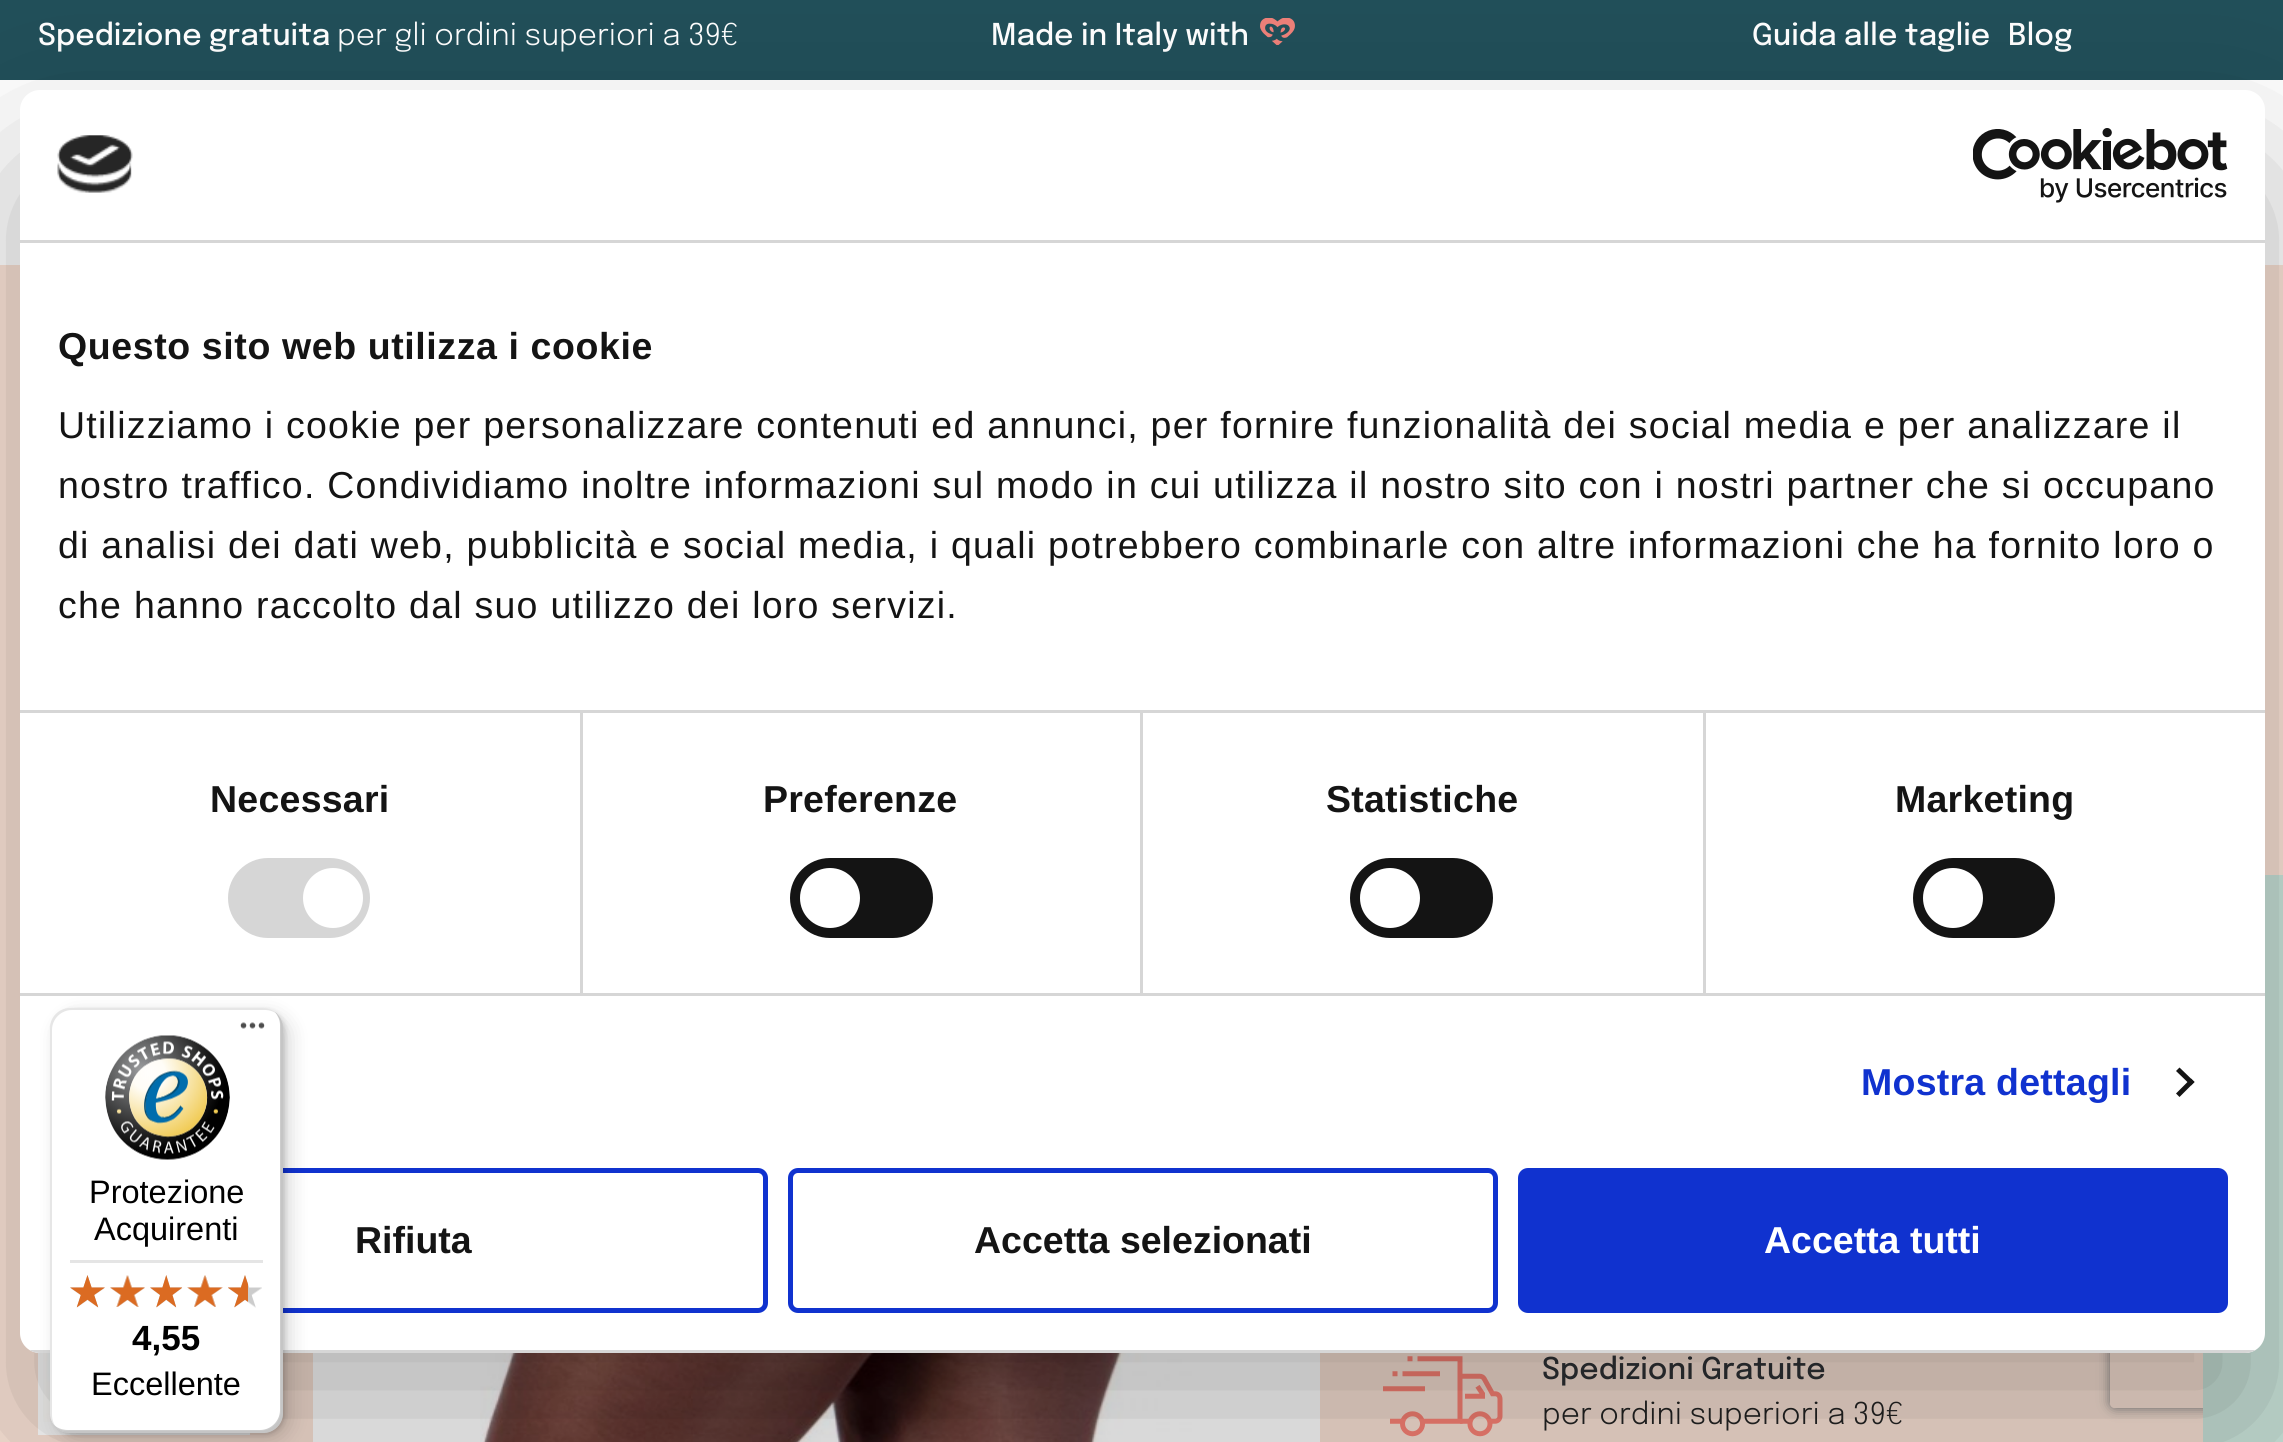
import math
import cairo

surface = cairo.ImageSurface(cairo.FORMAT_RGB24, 2283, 1442)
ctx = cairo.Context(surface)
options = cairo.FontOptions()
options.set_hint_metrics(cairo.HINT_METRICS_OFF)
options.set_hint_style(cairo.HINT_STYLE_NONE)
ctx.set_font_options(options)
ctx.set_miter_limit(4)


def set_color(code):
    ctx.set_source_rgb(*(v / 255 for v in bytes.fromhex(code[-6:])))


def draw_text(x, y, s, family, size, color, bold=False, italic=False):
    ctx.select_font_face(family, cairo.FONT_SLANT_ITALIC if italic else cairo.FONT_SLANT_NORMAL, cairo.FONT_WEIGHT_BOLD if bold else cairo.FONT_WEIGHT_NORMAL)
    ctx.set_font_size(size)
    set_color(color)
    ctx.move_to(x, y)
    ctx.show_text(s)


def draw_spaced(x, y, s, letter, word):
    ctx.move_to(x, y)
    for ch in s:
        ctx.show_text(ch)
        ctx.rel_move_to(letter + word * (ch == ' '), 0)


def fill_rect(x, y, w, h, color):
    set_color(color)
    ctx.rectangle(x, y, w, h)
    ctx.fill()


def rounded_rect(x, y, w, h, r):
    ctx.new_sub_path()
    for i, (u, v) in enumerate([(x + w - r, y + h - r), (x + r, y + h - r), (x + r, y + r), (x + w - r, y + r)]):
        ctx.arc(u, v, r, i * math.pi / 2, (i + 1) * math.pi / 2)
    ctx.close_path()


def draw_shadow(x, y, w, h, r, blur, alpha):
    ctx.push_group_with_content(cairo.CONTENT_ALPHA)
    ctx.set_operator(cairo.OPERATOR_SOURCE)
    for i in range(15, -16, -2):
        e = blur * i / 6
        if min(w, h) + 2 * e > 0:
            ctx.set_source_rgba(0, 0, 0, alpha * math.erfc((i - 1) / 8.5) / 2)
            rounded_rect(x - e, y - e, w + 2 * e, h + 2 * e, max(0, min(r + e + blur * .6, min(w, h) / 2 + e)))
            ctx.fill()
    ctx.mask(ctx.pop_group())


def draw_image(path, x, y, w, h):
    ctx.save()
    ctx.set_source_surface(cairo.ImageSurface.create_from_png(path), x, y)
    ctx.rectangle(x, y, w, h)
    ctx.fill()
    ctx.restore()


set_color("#fae3d6")
ctx.paint()
fill_rect(0, 80, 2283, 185, "#ffffff")
fill_rect(0, 0, 2283, 80, "#214f59")
draw_text(38, 45, "Spedizione gratuita", "Epilogue Medium", 30, "#ffffff")
draw_text(337, 45, "per gli ordini superiori a 39€", "Epilogue Light", 30, "#ffffff")
draw_text(991, 45, "Made in Italy with", "Epilogue Medium", 30, "#ffffff")
draw_image("assets/img1.png", 1260, 18, 35, 27)
draw_text(1752, 45, "Guida alle taglie", "Epilogue Medium", 30, "#ffffff")
draw_text(2008, 45, "Blog", "Epilogue Medium", 30, "#ffffff")
fill_rect(38, 1352, 212, 83, "#ffffff")
draw_image("assets/img2.png", 43, 1353, 10, 69)
fill_rect(313, 1353, 1007, 89, "#ffffff")
draw_image("assets/img3.png", 480, 1353, 712, 89)
draw_image("assets/img4.png", 1383, 1356, 120, 81)
draw_text(1542, 1379, "Spedizioni Gratuite", "Epilogue Medium", 30, "#2f3135")
draw_text(1542, 1424, "per ordini superiori a 39€", "Epilogue Light", 30, "#232323")
ctx.save()
ctx.set_fill_rule(cairo.FILL_RULE_EVEN_ODD)
ctx.new_path()
ctx.move_to(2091, 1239)
ctx.line_to(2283, 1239)
ctx.line_to(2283, 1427)
ctx.line_to(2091, 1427)
ctx.close_path()
ctx.move_to(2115, 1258)
ctx.line_to(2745, 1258)
ctx.curve_to(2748, 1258, 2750, 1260, 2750, 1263)
ctx.line_to(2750, 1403)
ctx.curve_to(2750, 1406, 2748, 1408, 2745, 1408)
ctx.line_to(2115, 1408)
ctx.curve_to(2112, 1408, 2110, 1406, 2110, 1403)
ctx.line_to(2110, 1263)
ctx.curve_to(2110, 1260, 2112, 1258, 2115, 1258)
ctx.close_path()
ctx.clip()
set_color("#808080")
draw_shadow(2110, 1258, 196, 150, 5, 6, 1)
ctx.restore()
fill_rect(2203, 875, 80, 567, "#c9e3d9")
set_color("#000000")
draw_shadow(20, 170, 2245, 1263, 20, 85, 0.3)
set_color("#ffffff")
rounded_rect(20, 90, 2245, 1263, 20)
ctx.fill()
fill_rect(20, 240, 2245, 3, "#d6d6d6")
draw_image("assets/img5.png", 57, 135, 76, 58)
draw_image("assets/img6.png", 1973, 128, 255, 75)
fill_rect(20, 710, 2245, 3, "#d6d6d6")
ctx.select_font_face("Liberation Sans", cairo.FONT_SLANT_NORMAL, cairo.FONT_WEIGHT_BOLD)
ctx.set_font_size(37.5)
set_color("#141414")
draw_spaced(58, 359, "Questo sito web utilizza i cookie", 0.6, 0)
ctx.select_font_face("Liberation Sans")
draw_spaced(58, 438, "Utilizziamo i cookie per personalizzare contenuti ed annunci, per fornire funzionalità dei social media e per analizzare il", 1.25, 0)
draw_spaced(58, 498, "nostro traffico. Condividiamo inoltre informazioni sul modo in cui utilizza il nostro sito con i nostri partner che si occupano", 1.25, 0)
draw_spaced(58, 558, "di analisi dei dati web, pubblicità e social media, i quali potrebbero combinarle con altre informazioni che ha fornito loro o", 1.25, 0)
draw_spaced(58, 618, "che hanno raccolto dal suo utilizzo dei loro servizi.", 1.25, 0)
fill_rect(20, 993, 2245, 3, "#d6d6d6")
fill_rect(580, 713, 3, 280, "#d6d6d6")
ctx.select_font_face("Liberation Sans", cairo.FONT_SLANT_NORMAL, cairo.FONT_WEIGHT_BOLD)
set_color("#141414")
draw_spaced(210, 812, "Necessari", 0.25, 0)
set_color("#d6d6d6")
rounded_rect(228, 858, 142, 80, 40)
ctx.fill()
set_color("#ffffff")
ctx.arc(333, 898, 30, 0, 2 * math.pi)
ctx.fill()
fill_rect(1140, 713, 3, 280, "#d6d6d6")
set_color("#141414")
draw_spaced(763, 812, "Preferenze", 0.25, 0)
rounded_rect(790, 858, 143, 80, 40)
ctx.fill()
set_color("#ffffff")
ctx.arc(830, 898, 30, 0, 2 * math.pi)
ctx.fill()
fill_rect(1703, 713, 3, 280, "#d6d6d6")
set_color("#141414")
draw_spaced(1326, 812, "Statistiche", 0.25, 0)
rounded_rect(1350, 858, 143, 80, 40)
ctx.fill()
set_color("#ffffff")
ctx.arc(1390, 898, 30, 0, 2 * math.pi)
ctx.fill()
set_color("#141414")
draw_spaced(1895, 812, "Marketing", 0.25, 0)
rounded_rect(1913, 858, 142, 80, 40)
ctx.fill()
set_color("#ffffff")
ctx.arc(1953, 898, 30, 0, 2 * math.pi)
ctx.fill()
set_color("#1032cf")
draw_spaced(1861, 1095, "Mostra dettagli", 0.25, 0)
set_color("#141414")
ctx.new_path()
ctx.move_to(2179.5, 1067.5)
ctx.line_to(2194.5, 1082)
ctx.line_to(2191, 1085.5)
ctx.line_to(2176, 1071)
ctx.close_path()
ctx.fill()
ctx.new_path()
ctx.move_to(2191, 1078.5)
ctx.line_to(2194.5, 1082)
ctx.line_to(2179.5, 1097)
ctx.line_to(2176, 1093.5)
ctx.close_path()
ctx.fill()
ctx.save()
rounded_rect(20, 90, 2245, 1263, 20)
ctx.clip()
fill_rect(29, 1350, 2227, 3, "#d6d6d6")
ctx.restore()
rounded_rect(60.5, 1170.5, 705, 140, 7.5)
set_color("#1032cf")
ctx.set_line_width(5)
ctx.stroke()
draw_text(355, 1253, "Rifiuta", "Liberation Sans", 37.5, "#141414", bold=True)
rounded_rect(790.5, 1170.5, 705, 140, 7.5)
set_color("#1032cf")
ctx.stroke()
draw_text(974, 1253, "Accetta selezionati", "Liberation Sans", 37.5, "#141414", bold=True)
set_color("#1032cf")
rounded_rect(1520.5, 1170.5, 705, 140, 7.5)
ctx.fill_preserve()
ctx.stroke()
draw_text(1764, 1253, "Accetta tutti", "Liberation Sans", 37.5, "#ffffff", bold=True)
set_color("#000000")
draw_shadow(58, 1015, 232, 425, 20, 10, 0.15)
draw_shadow(53, 1010, 232, 425, 20, 2.5, 0.15)
set_color("#ffffff")
rounded_rect(50, 1008, 233, 425, 20)
ctx.fill()
ctx.set_source_rgba(0, 0, 0, 0.1)
ctx.new_path()
ctx.move_to(72, 1010)
ctx.line_to(265, 1010)
ctx.curve_to(270, 1010, 275, 1012, 278, 1015)
ctx.curve_to(275, 1011, 269, 1008, 263, 1008)
ctx.line_to(70, 1008)
ctx.curve_to(59, 1008, 50, 1017, 50, 1028)
ctx.line_to(50, 1413)
ctx.curve_to(50, 1419, 53, 1425, 57, 1428)
ctx.curve_to(54, 1425, 52, 1420, 52, 1415)
ctx.line_to(52, 1030)
ctx.curve_to(52, 1019, 61, 1010, 72, 1010)
ctx.close_path()
ctx.fill()
ctx.set_source_rgba(0, 0, 0, 0.2)
ctx.new_path()
ctx.move_to(53, 1424)
ctx.curve_to(57, 1429, 63, 1433, 70, 1433)
ctx.line_to(263, 1433)
ctx.curve_to(274, 1433, 283, 1424, 283, 1413)
ctx.line_to(283, 1028)
ctx.curve_to(283, 1022, 280, 1016, 275, 1012)
ctx.curve_to(278, 1016, 280, 1020, 280, 1025)
ctx.line_to(280, 1410)
ctx.curve_to(280, 1421, 271, 1430, 260, 1430)
ctx.line_to(68, 1430)
ctx.curve_to(62, 1430, 57, 1428, 53, 1424)
ctx.close_path()
ctx.fill()
ctx.set_source_rgba(0.196, 0.196, 0.196, 0.2)
ctx.new_path()
ctx.move_to(55, 1426)
ctx.curve_to(58, 1430, 64, 1433, 70, 1433)
ctx.line_to(263, 1433)
ctx.curve_to(274, 1433, 283, 1424, 283, 1413)
ctx.line_to(283, 1028)
ctx.curve_to(283, 1022, 280, 1016, 276, 1013)
ctx.curve_to(279, 1016, 281, 1021, 281, 1026)
ctx.line_to(281, 1411)
ctx.curve_to(281, 1422, 272, 1431, 261, 1431)
ctx.line_to(68, 1431)
ctx.curve_to(63, 1431, 58, 1429, 55, 1426)
ctx.close_path()
ctx.fill()
ctx.set_source_rgba(1, 1, 1, 0.3)
ctx.new_path()
ctx.move_to(52, 1421)
ctx.curve_to(55, 1428, 62, 1433, 70, 1433)
ctx.line_to(263, 1433)
ctx.curve_to(274, 1433, 283, 1424, 283, 1413)
ctx.line_to(283, 1028)
ctx.curve_to(283, 1022, 280, 1016, 276, 1013)
ctx.curve_to(279, 1016, 281, 1021, 281, 1026)
ctx.line_to(281, 1411)
ctx.curve_to(281, 1422, 272, 1431, 261, 1431)
ctx.line_to(69, 1431)
ctx.curve_to(62, 1431, 55, 1427, 52, 1421)
ctx.close_path()
ctx.fill()
draw_image("assets/img7.png", 240, 1022, 25, 7)
draw_image("assets/img8.png", 105, 1035, 125, 125)
draw_text(89, 1203, "Protezione", "Liberation Sans", 32.5, "#000000")
draw_text(94, 1240, "Acquirenti", "Liberation Sans", 32.5, "#000000")
fill_rect(70, 1260, 193, 3, "#e5e5e5")
draw_image("assets/img9.png", 70, 1275, 35, 33)
draw_image("assets/img10.png", 110, 1275, 35, 32)
draw_image("assets/img11.png", 150, 1275, 32, 33)
draw_image("assets/img12.png", 187, 1275, 36, 32)
draw_image("assets/img13.png", 228, 1275, 34, 33)
draw_image("assets/img14.png", 70, 1275, 35, 33)
draw_image("assets/img15.png", 110, 1275, 35, 32)
draw_image("assets/img16.png", 150, 1275, 33, 33)
draw_image("assets/img17.png", 187, 1275, 36, 32)
draw_image("assets/img18.png", 228, 1275, 20, 33)
draw_text(132, 1350, "4,55", "Liberation Sans", 35, "#000000", bold=True)
draw_text(91, 1395, "Eccellente", "Liberation Sans", 32.5, "#000000")
surface.write_to_png("output.png")
